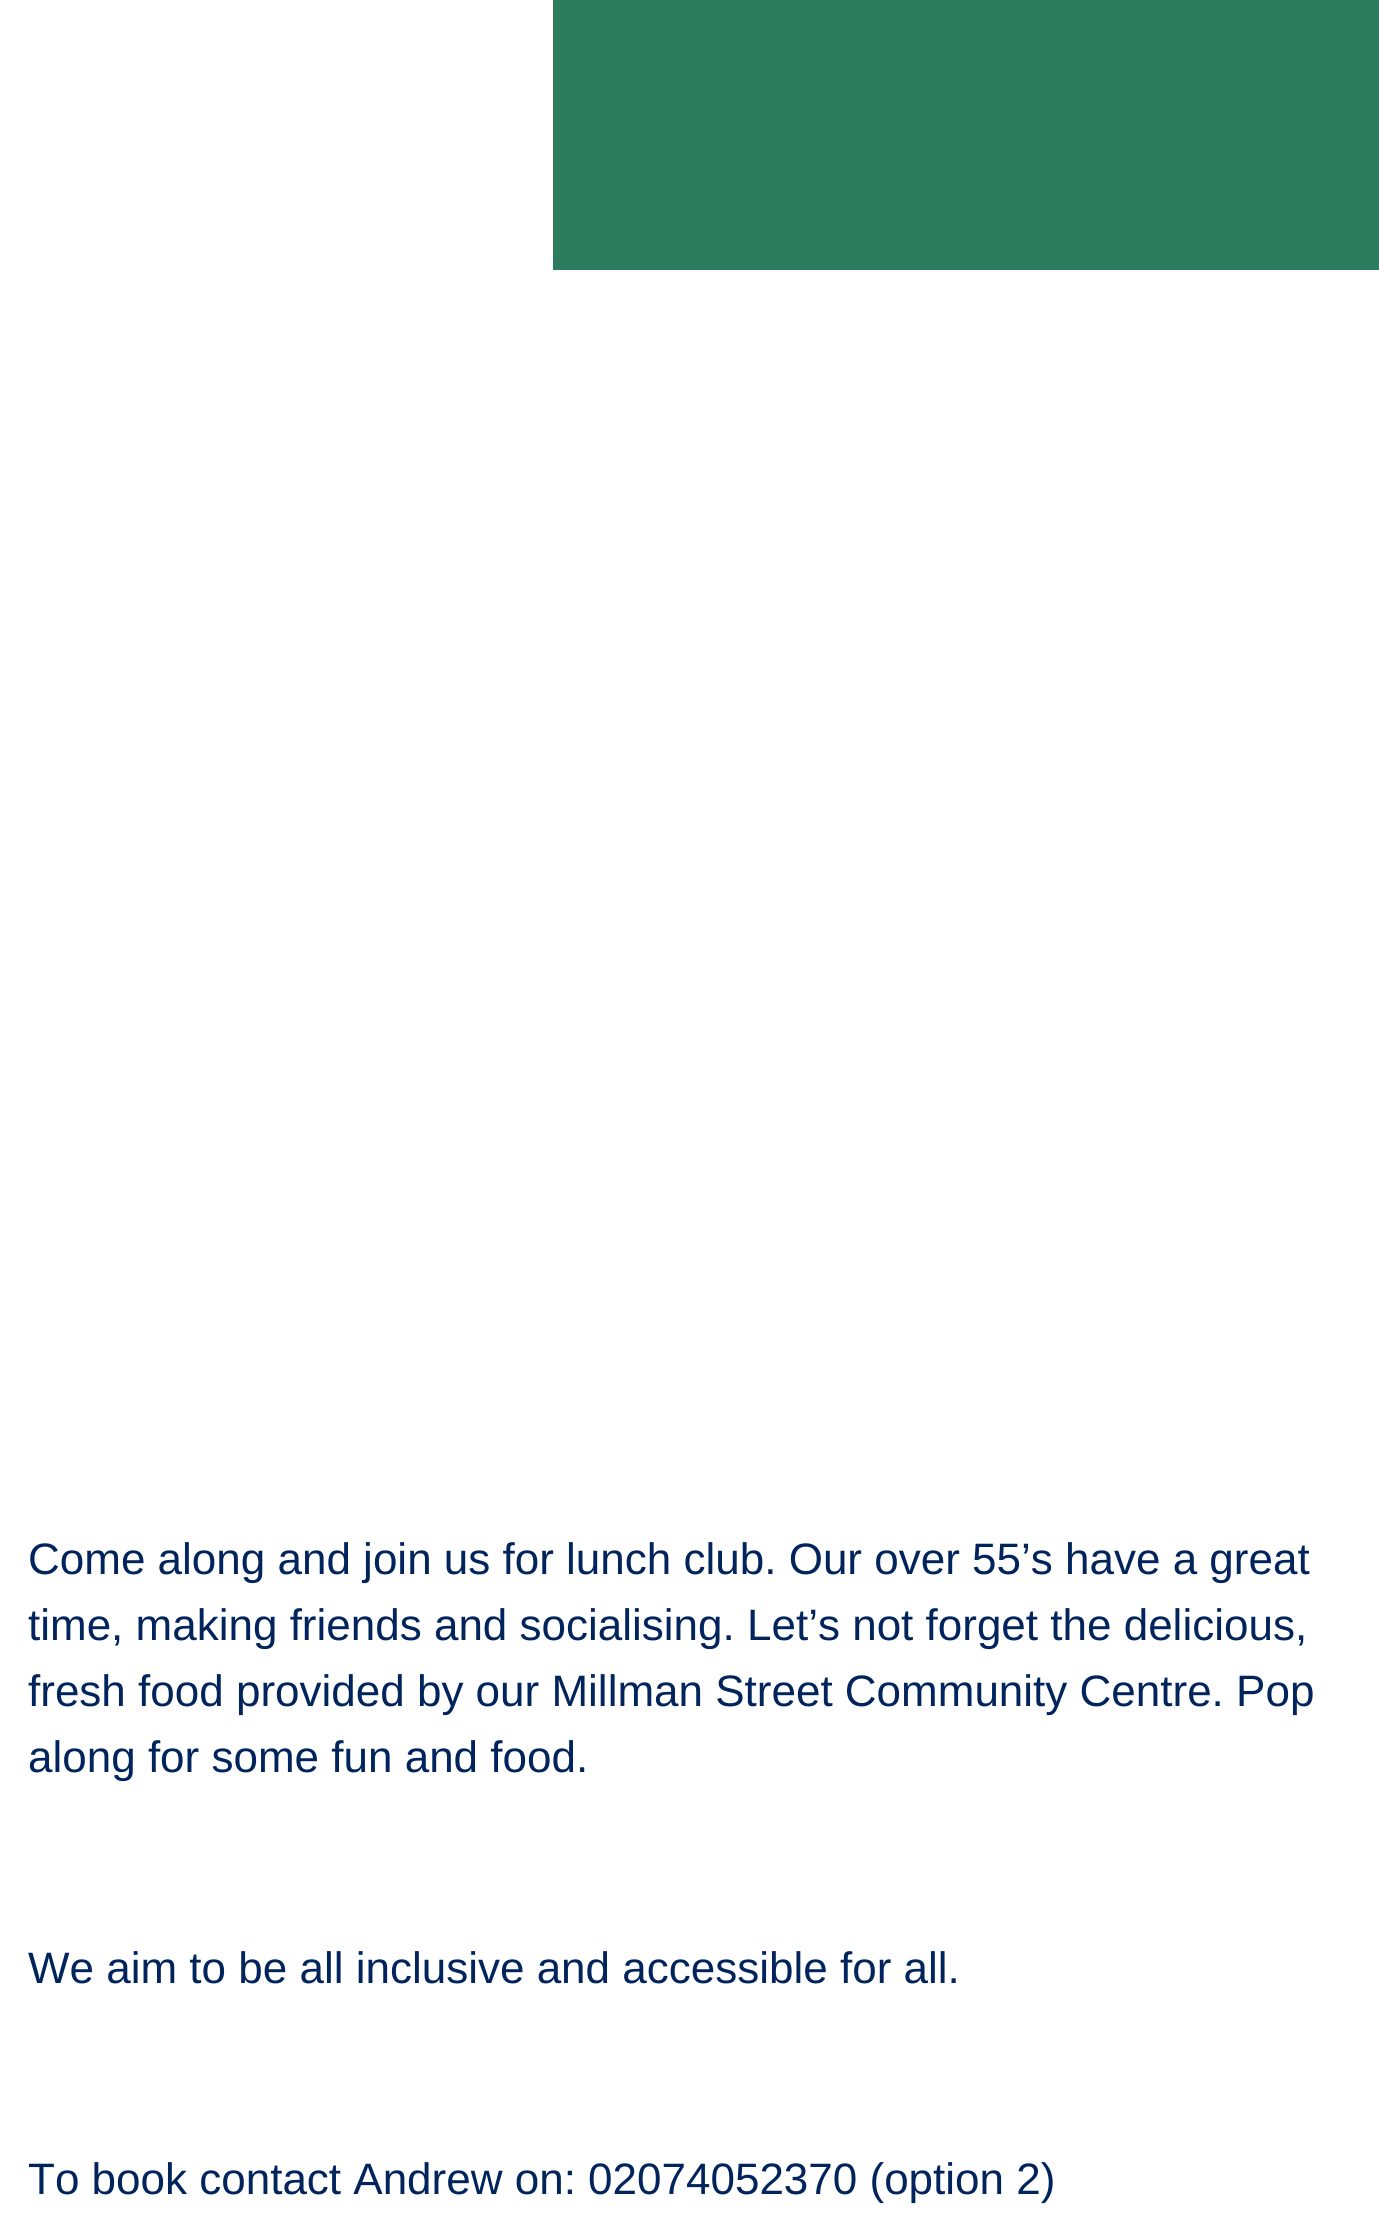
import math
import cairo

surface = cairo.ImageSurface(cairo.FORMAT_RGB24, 1379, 2239)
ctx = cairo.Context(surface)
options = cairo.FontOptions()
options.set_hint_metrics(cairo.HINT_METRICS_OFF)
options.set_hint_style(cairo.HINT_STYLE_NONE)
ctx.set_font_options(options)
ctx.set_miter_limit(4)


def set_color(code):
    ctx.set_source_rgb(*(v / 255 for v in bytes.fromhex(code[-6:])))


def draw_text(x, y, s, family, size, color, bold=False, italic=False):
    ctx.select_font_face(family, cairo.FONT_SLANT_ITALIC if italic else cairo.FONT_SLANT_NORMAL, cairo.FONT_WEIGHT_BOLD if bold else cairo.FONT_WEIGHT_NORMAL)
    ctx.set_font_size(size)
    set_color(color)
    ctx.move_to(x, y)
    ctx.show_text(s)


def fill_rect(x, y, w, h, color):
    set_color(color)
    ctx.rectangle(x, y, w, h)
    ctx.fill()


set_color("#ffffff")
ctx.paint()
fill_rect(553, 0, 826, 270, "#2c7d5f")
draw_text(28, 1574, "Come along and join us for lunch club. Our over 55’s have a great", "Liberation Sans", 44, "#00245b")
draw_text(28, 1640, "time, making friends and socialising. Let’s not forget the delicious,", "Liberation Sans", 44, "#00245b")
draw_text(28, 1706, "fresh food provided by our Millman Street Community Centre. Pop", "Liberation Sans", 44, "#00245b")
draw_text(28, 1772, "along for some fun and food.", "Liberation Sans", 44, "#00245b")
draw_text(28, 1983, "We aim to be all inclusive and accessible for all.", "Liberation Sans", 44, "#00245b")
draw_text(28, 2194, "To book contact Andrew on: 02074052370 (option 2)", "Liberation Sans", 44, "#00245b")
surface.write_to_png("output.png")
